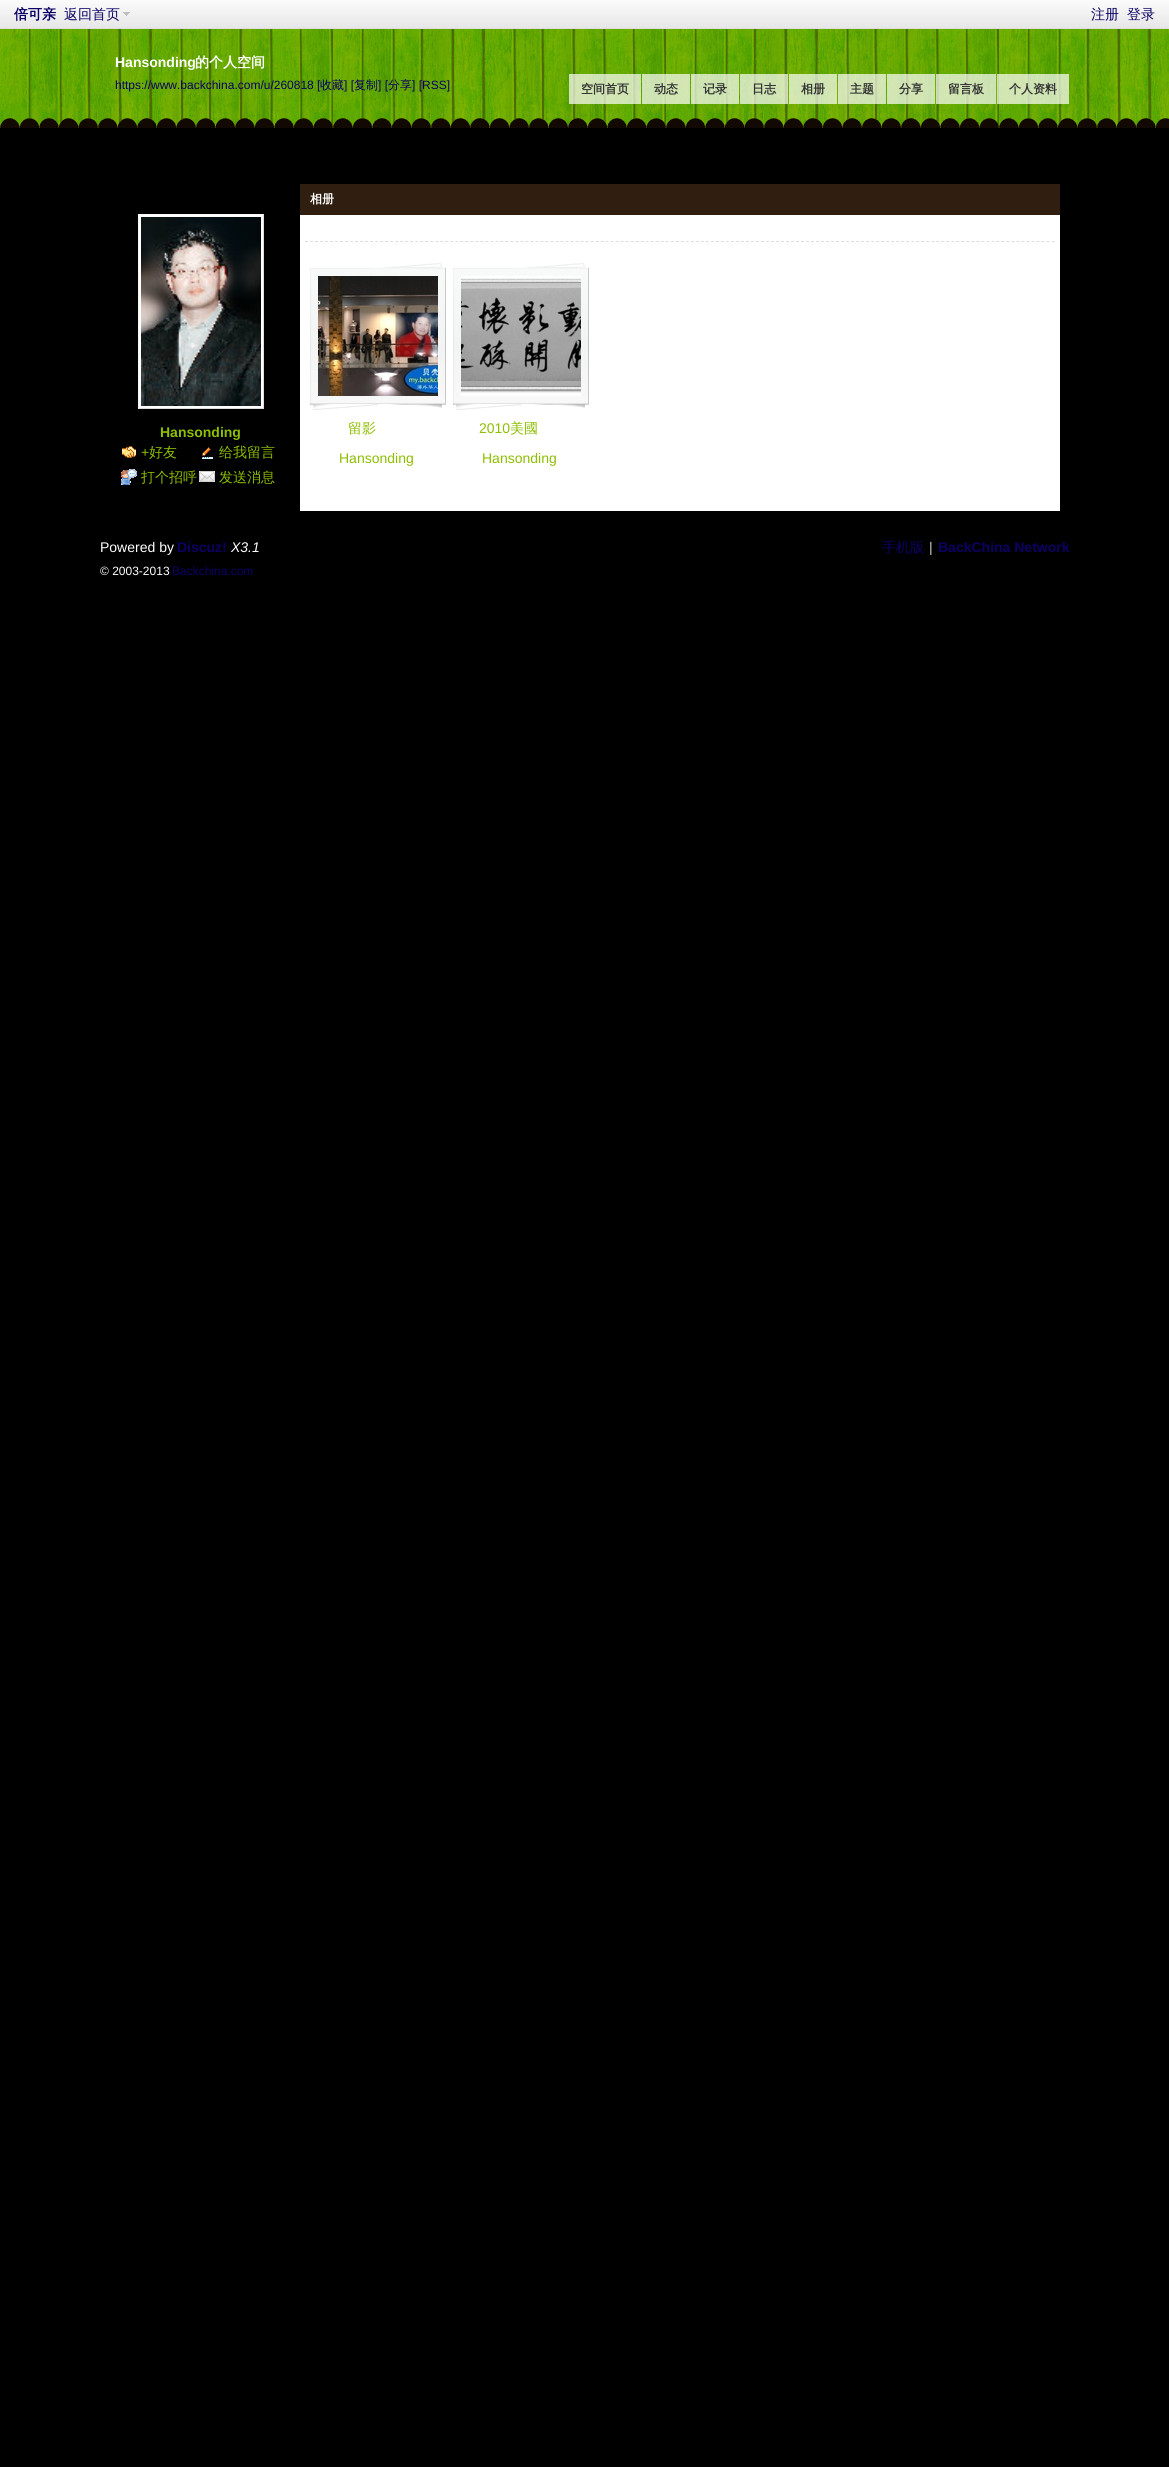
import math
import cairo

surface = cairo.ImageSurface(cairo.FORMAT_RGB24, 1169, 2467)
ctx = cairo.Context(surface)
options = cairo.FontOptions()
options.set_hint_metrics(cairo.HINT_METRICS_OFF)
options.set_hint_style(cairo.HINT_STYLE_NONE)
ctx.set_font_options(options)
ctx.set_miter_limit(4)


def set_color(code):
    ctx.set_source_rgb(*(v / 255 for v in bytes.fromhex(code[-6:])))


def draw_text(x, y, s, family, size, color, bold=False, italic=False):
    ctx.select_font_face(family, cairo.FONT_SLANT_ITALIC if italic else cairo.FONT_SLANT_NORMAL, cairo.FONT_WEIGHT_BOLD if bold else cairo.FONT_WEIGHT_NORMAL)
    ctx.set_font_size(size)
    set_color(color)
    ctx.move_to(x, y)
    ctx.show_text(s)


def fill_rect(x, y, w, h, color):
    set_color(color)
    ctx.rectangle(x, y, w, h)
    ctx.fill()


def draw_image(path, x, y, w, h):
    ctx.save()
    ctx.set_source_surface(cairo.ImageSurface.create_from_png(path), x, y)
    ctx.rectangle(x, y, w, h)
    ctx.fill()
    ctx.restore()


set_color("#000000")
ctx.paint()
draw_image("assets/img1.png", 0, 29, 1169, 99)
draw_image("assets/img2.png", 0, 0, 1169, 28)
fill_rect(0, 28, 1169, 1, "#dddddd")
draw_text(14, 19, "倍可亲", "WenQuanYi Zen Hei", 14, "#0a0064", bold=True)
draw_image("assets/img3.png", 123, 12, 7, 4)
draw_text(64, 19, "返回首页", "WenQuanYi Zen Hei Medium", 14, "#0a0064")
draw_text(1091, 19, "注册", "WenQuanYi Zen Hei Medium", 14, "#0a0064")
draw_text(1127, 19, "登录", "WenQuanYi Zen Hei Medium", 14, "#0a0064")
draw_text(115, 67, "Hansonding", "Liberation Sans", 14, "#ffffff", bold=True)
draw_text(195, 67, "的个人空间", "WenQuanYi Zen Hei", 14, "#ffffff", bold=True)
draw_text(115, 89, "https://www.backchina.com/u/260818 [", "Liberation Sans", 12, "#0a0064")
draw_text(320, 89, "收藏", "WenQuanYi Zen Hei Medium", 12, "#0a0064")
draw_text(344, 89, "] [", "Liberation Sans", 12, "#0a0064")
draw_text(354, 89, "复制", "WenQuanYi Zen Hei Medium", 12, "#0a0064")
draw_text(378, 89, "] [", "Liberation Sans", 12, "#0a0064")
draw_text(388, 89, "分享", "WenQuanYi Zen Hei Medium", 12, "#0a0064")
draw_text(412, 89, "] [RSS]", "Liberation Sans", 12, "#0a0064")
ctx.set_source_rgba(1, 1, 1, 0.7)
ctx.rectangle(569, 74, 72, 30)
ctx.fill()
draw_text(581, 93, "空间首页", "WenQuanYi Zen Hei", 12, "#333333", bold=True)
ctx.set_source_rgba(1, 1, 1, 0.7)
ctx.rectangle(642, 74, 48, 30)
ctx.fill()
draw_text(654, 93, "动态", "WenQuanYi Zen Hei", 12, "#333333", bold=True)
ctx.set_source_rgba(1, 1, 1, 0.7)
ctx.rectangle(691, 74, 48, 30)
ctx.fill()
draw_text(703, 93, "记录", "WenQuanYi Zen Hei", 12, "#333333", bold=True)
ctx.set_source_rgba(1, 1, 1, 0.7)
ctx.rectangle(740, 74, 48, 30)
ctx.fill()
draw_text(752, 93, "日志", "WenQuanYi Zen Hei", 12, "#333333", bold=True)
ctx.set_source_rgba(1, 1, 1, 0.7)
ctx.rectangle(789, 74, 48, 30)
ctx.fill()
draw_text(801, 93, "相册", "WenQuanYi Zen Hei", 12, "#333333", bold=True)
ctx.set_source_rgba(1, 1, 1, 0.7)
ctx.rectangle(838, 74, 48, 30)
ctx.fill()
draw_text(850, 93, "主题", "WenQuanYi Zen Hei", 12, "#333333", bold=True)
ctx.set_source_rgba(1, 1, 1, 0.7)
ctx.rectangle(887, 74, 48, 30)
ctx.fill()
draw_text(899, 93, "分享", "WenQuanYi Zen Hei", 12, "#333333", bold=True)
ctx.set_source_rgba(1, 1, 1, 0.7)
ctx.rectangle(936, 74, 60, 30)
ctx.fill()
draw_text(948, 93, "留言板", "WenQuanYi Zen Hei", 12, "#333333", bold=True)
ctx.set_source_rgba(1, 1, 1, 0.7)
ctx.rectangle(997, 74, 72, 30)
ctx.fill()
draw_text(1009, 93, "个人资料", "WenQuanYi Zen Hei", 12, "#333333", bold=True)
fill_rect(138, 214, 126, 1, "#f6f6f6")
fill_rect(263, 214, 1, 195, "#dddddd")
fill_rect(138, 408, 126, 1, "#dddddd")
fill_rect(138, 214, 1, 195, "#f6f6f6")
fill_rect(139, 215, 124, 193, "#ffffff")
draw_image("assets/img4.png", 141, 217, 120, 189)
draw_text(160, 437, "Hansonding", "Liberation Sans", 14, "#8dbe00", bold=True)
draw_image("assets/img5.png", 122, 446, 14, 12)
draw_text(141, 457, "+", "Liberation Sans", 14, "#8dbe00")
draw_text(149, 457, "好友", "WenQuanYi Zen Hei Medium", 14, "#8dbe00")
draw_image("assets/img6.png", 202, 447, 11, 12)
draw_text(219, 457, "给我留言", "WenQuanYi Zen Hei Medium", 14, "#8dbe00")
draw_image("assets/img7.png", 121, 469, 16, 16)
draw_text(141, 482, "打个招呼", "WenQuanYi Zen Hei Medium", 14, "#8dbe00")
draw_image("assets/img8.png", 199, 471, 16, 11)
draw_text(219, 482, "发送消息", "WenQuanYi Zen Hei Medium", 14, "#8dbe00")
fill_rect(300, 215, 760, 296, "#ffffff")
fill_rect(300, 184, 760, 31, "#301e10")
draw_text(310, 203, "相册", "WenQuanYi Zen Hei", 12, "#ffffff", bold=True)
ctx.new_path()
ctx.move_to(305, 241.5)
ctx.line_to(1055, 241.5)
set_color("#dddddd")
ctx.set_line_width(1)
ctx.set_dash([3, 2.01])
ctx.stroke()
draw_image("assets/img9.png", 310, 263, 136, 147)
draw_image("assets/img10.png", 318, 276, 120, 120)
draw_text(348, 433, "留影", "WenQuanYi Zen Hei Medium", 14, "#8dbe00")
draw_text(339, 463, "Hansonding", "Liberation Sans", 14, "#8dbe00")
draw_image("assets/img9.png", 453, 263, 136, 147)
draw_image("assets/img11.png", 461, 278, 120, 115)
draw_text(479, 433, "2010", "Liberation Sans", 14, "#8dbe00")
draw_text(510, 433, "美國", "WenQuanYi Zen Hei Medium", 14, "#8dbe00")
draw_text(482, 463, "Hansonding", "Liberation Sans", 14, "#8dbe00")
draw_text(100, 552, "Powered by", "Liberation Sans", 14, "#ffffff")
draw_text(177, 552, "Discuz!", "Liberation Sans", 14, "#0a0064", bold=True)
draw_text(231, 552, "X3.1", "Liberation Sans", 14, "#ffffff", italic=True)
draw_text(100, 575, "© 2003-2013", "Liberation Sans", 12, "#ffffff")
draw_text(172, 575, "Backchina.com", "Liberation Sans", 12, "#0a0064")
draw_text(882, 552, "手机版", "WenQuanYi Zen Hei Medium", 14, "#0a0064")
draw_text(929, 552, "|", "Liberation Sans", 14, "#cccccc")
draw_text(938, 552, "BackChina Network", "Liberation Sans", 14, "#0a0064", bold=True)
surface.write_to_png("output.png")
